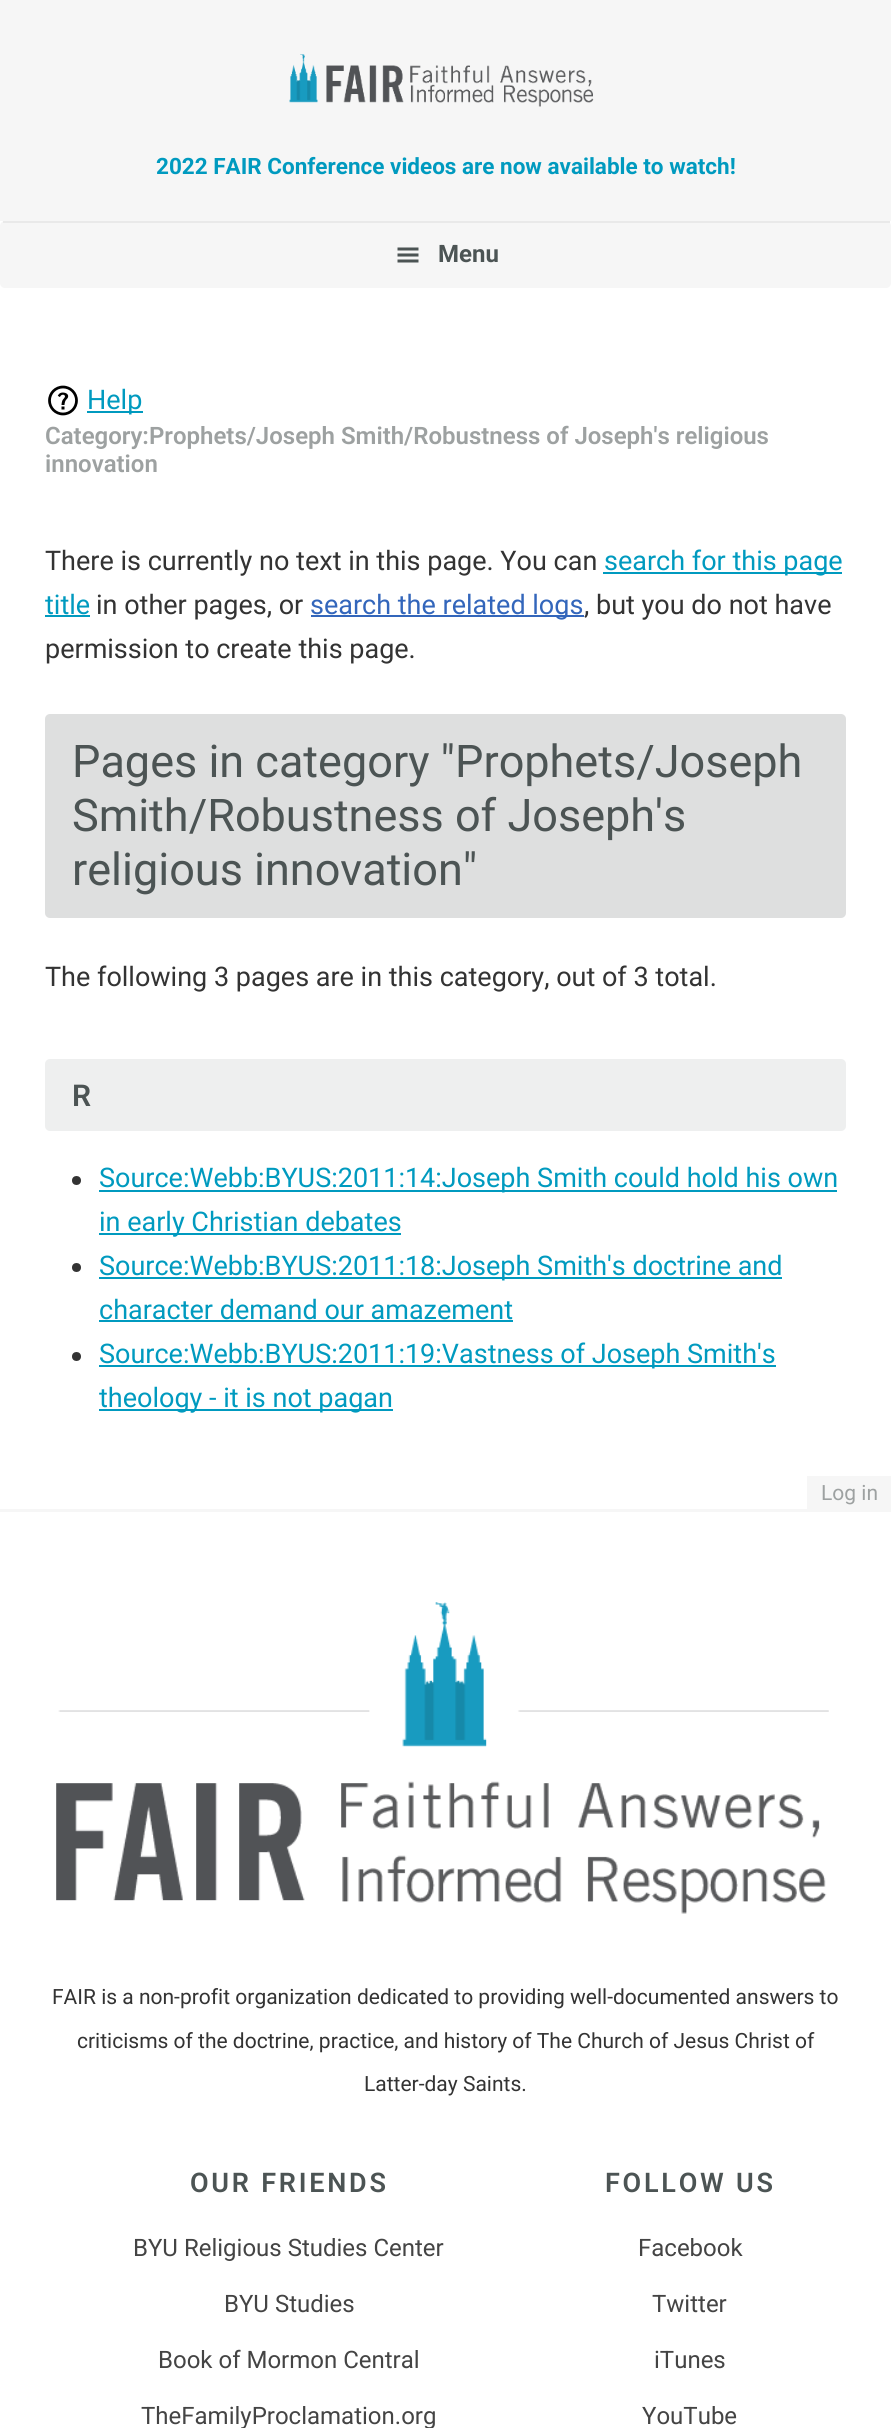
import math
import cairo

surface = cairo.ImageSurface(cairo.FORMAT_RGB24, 891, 2428)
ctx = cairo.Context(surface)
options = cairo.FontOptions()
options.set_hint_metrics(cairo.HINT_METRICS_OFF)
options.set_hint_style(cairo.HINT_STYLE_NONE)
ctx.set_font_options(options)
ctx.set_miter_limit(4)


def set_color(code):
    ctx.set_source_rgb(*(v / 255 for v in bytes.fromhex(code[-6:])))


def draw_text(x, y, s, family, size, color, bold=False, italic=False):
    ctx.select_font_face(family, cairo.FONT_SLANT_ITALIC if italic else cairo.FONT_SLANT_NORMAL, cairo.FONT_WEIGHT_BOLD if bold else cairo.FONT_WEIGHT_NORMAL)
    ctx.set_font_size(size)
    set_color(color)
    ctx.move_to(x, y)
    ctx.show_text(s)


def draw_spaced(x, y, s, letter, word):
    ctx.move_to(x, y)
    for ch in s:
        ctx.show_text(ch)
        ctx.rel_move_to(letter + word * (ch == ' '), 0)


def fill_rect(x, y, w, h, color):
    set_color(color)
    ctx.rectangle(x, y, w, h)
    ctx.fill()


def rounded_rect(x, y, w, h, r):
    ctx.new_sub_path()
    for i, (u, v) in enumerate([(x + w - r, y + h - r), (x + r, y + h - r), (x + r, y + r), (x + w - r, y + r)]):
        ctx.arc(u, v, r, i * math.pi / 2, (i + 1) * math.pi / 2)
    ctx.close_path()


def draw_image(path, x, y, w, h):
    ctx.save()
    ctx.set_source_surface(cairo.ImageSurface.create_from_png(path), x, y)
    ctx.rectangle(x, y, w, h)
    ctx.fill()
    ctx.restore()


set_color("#ffffff")
ctx.paint()
fill_rect(0, 0, 891, 221, "#f6f6f6")
draw_image("assets/img1.png", 289, 54, 305, 53)
draw_text(156, 174, "2022 FAIR Conference videos are now available to watch!", "Roboto", 22.5, "#009abf", bold=True)
set_color("#f6f6f6")
rounded_rect(0, 221, 891, 67, 5)
ctx.fill()
fill_rect(3, 221, 887, 2, "#e9e9e9")
draw_image("assets/img2.png", 397, 247, 22, 16)
draw_text(438, 262, "Menu", "Roboto", 24, "#4c5454", bold=True)
draw_image("assets/img3.png", 48, 385, 30, 31)
fill_rect(87, 411, 56, 2, "#009abf")
draw_text(87, 409, "Help", "Roboto", 27, "#009abf")
draw_text(45, 444, "Category:Prophets/Joseph Smith/Robustness of Joseph's religious", "Roboto SemiBold", 24, "#9da1a1")
draw_text(45, 472, "innovation", "Roboto SemiBold", 24, "#9da1a1")
draw_text(45, 570, "There is currently no text in this page. You can", "Roboto", 27, "#333333")
fill_rect(603, 572, 239, 2, "#009abf")
draw_text(604, 570, "search for this page", "Roboto", 27, "#009abf")
draw_text(45, 614, "title", "Roboto", 27, "#009abf")
fill_rect(45, 615, 45, 2, "#009abf")
draw_text(96, 614, "in other pages, or", "Roboto", 27, "#333333")
fill_rect(311, 615, 273, 2, "#3366bb")
draw_text(310, 614, "search the related logs", "Roboto", 27, "#3366bb")
draw_text(584, 614, ", but you do not have", "Roboto", 27, "#333333")
draw_text(45, 658, "permission to create this page.", "Roboto", 27, "#333333")
set_color("#dedfdf")
rounded_rect(45, 714, 801, 204, 5)
ctx.fill()
draw_text(72, 777, "Pages in category \"Prophets/Joseph", "Roboto", 45, "#4c5454")
draw_text(72, 831, "Smith/Robustness of Joseph's", "Roboto", 45, "#4c5454")
draw_text(72, 885, "religious innovation\"", "Roboto", 45, "#4c5454")
draw_text(45, 986, "The following 3 pages are in this category, out of 3 total.", "Roboto", 27, "#333333")
set_color("#eeefef")
rounded_rect(45, 1059, 801, 72, 5)
ctx.fill()
draw_text(72, 1106, "R", "Roboto SemiBold", 30, "#4c5454")
set_color("#333333")
ctx.new_path()
ctx.arc(76.5, 1180.5, 4.5, 0, 2 * math.pi)
ctx.fill()
fill_rect(99, 1190, 738, 2, "#009abf")
draw_text(99, 1187, "Source:Webb:BYUS:2011:14:Joseph Smith could hold his own", "Roboto", 27, "#009abf")
fill_rect(99, 1233, 302, 2, "#009abf")
draw_text(99, 1231, "in early Christian debates", "Roboto", 27, "#009abf")
set_color("#333333")
ctx.new_path()
ctx.arc(76.5, 1267.5, 4.5, 0, 2 * math.pi)
ctx.fill()
fill_rect(99, 1277, 683, 2, "#009abf")
draw_text(99, 1275, "Source:Webb:BYUS:2011:18:Joseph Smith's doctrine and", "Roboto", 27, "#009abf")
draw_text(99, 1319, "character demand our amazement", "Roboto", 27, "#009abf")
fill_rect(99, 1320, 414, 2, "#009abf")
set_color("#333333")
ctx.new_path()
ctx.arc(76.5, 1356.5, 4.5, 0, 2 * math.pi)
ctx.fill()
fill_rect(99, 1365, 677, 2, "#009abf")
draw_text(99, 1363, "Source:Webb:BYUS:2011:19:Vastness of Joseph Smith's", "Roboto", 27, "#009abf")
fill_rect(99, 1409, 294, 2, "#009abf")
draw_text(99, 1407, "theology - it is not pagan", "Roboto", 27, "#009abf")
fill_rect(807, 1476, 84, 33, "#f6f6f6")
draw_text(821, 1500, "Log in", "Roboto", 21, "#9da1a1")
fill_rect(0, 1509, 891, 3, "#f6f6f6")
draw_image("assets/img4.png", 56, 1602, 773, 312)
draw_text(52, 2004, "FAIR is a non-profit organization dedicated to providing well-documented answers to", "Roboto", 21, "#333333")
draw_text(77, 2048, "criticisms of the doctrine, practice, and history of The Church of Jesus Christ of", "Roboto", 21, "#333333")
draw_text(364, 2091, "Latter-day Saints.", "Roboto", 21, "#333333")
ctx.select_font_face("Roboto SemiBold")
ctx.set_font_size(27)
set_color("#4c5454")
draw_spaced(190, 2192, "OUR FRIENDS", 2.75, 0)
draw_text(133, 2256, "BYU Religious Studies Center", "Roboto", 24, "#444444")
draw_text(224, 2312, "BYU Studies", "Roboto", 24, "#444444")
draw_text(158, 2368, "Book of Mormon Central", "Roboto", 24, "#444444")
draw_text(141, 2424, "TheFamilyProclamation.org", "Roboto", 24, "#444444")
ctx.select_font_face("Roboto SemiBold")
ctx.set_font_size(27)
set_color("#4c5454")
draw_spaced(605, 2192, "FOLLOW US", 2.75, 0)
draw_text(638, 2256, "Facebook", "Roboto", 24, "#444444")
draw_text(652, 2312, "Twitter", "Roboto", 24, "#444444")
draw_text(654, 2368, "iTunes", "Roboto", 24, "#444444")
draw_text(642, 2424, "YouTube", "Roboto", 24, "#444444")
surface.write_to_png("output.png")
